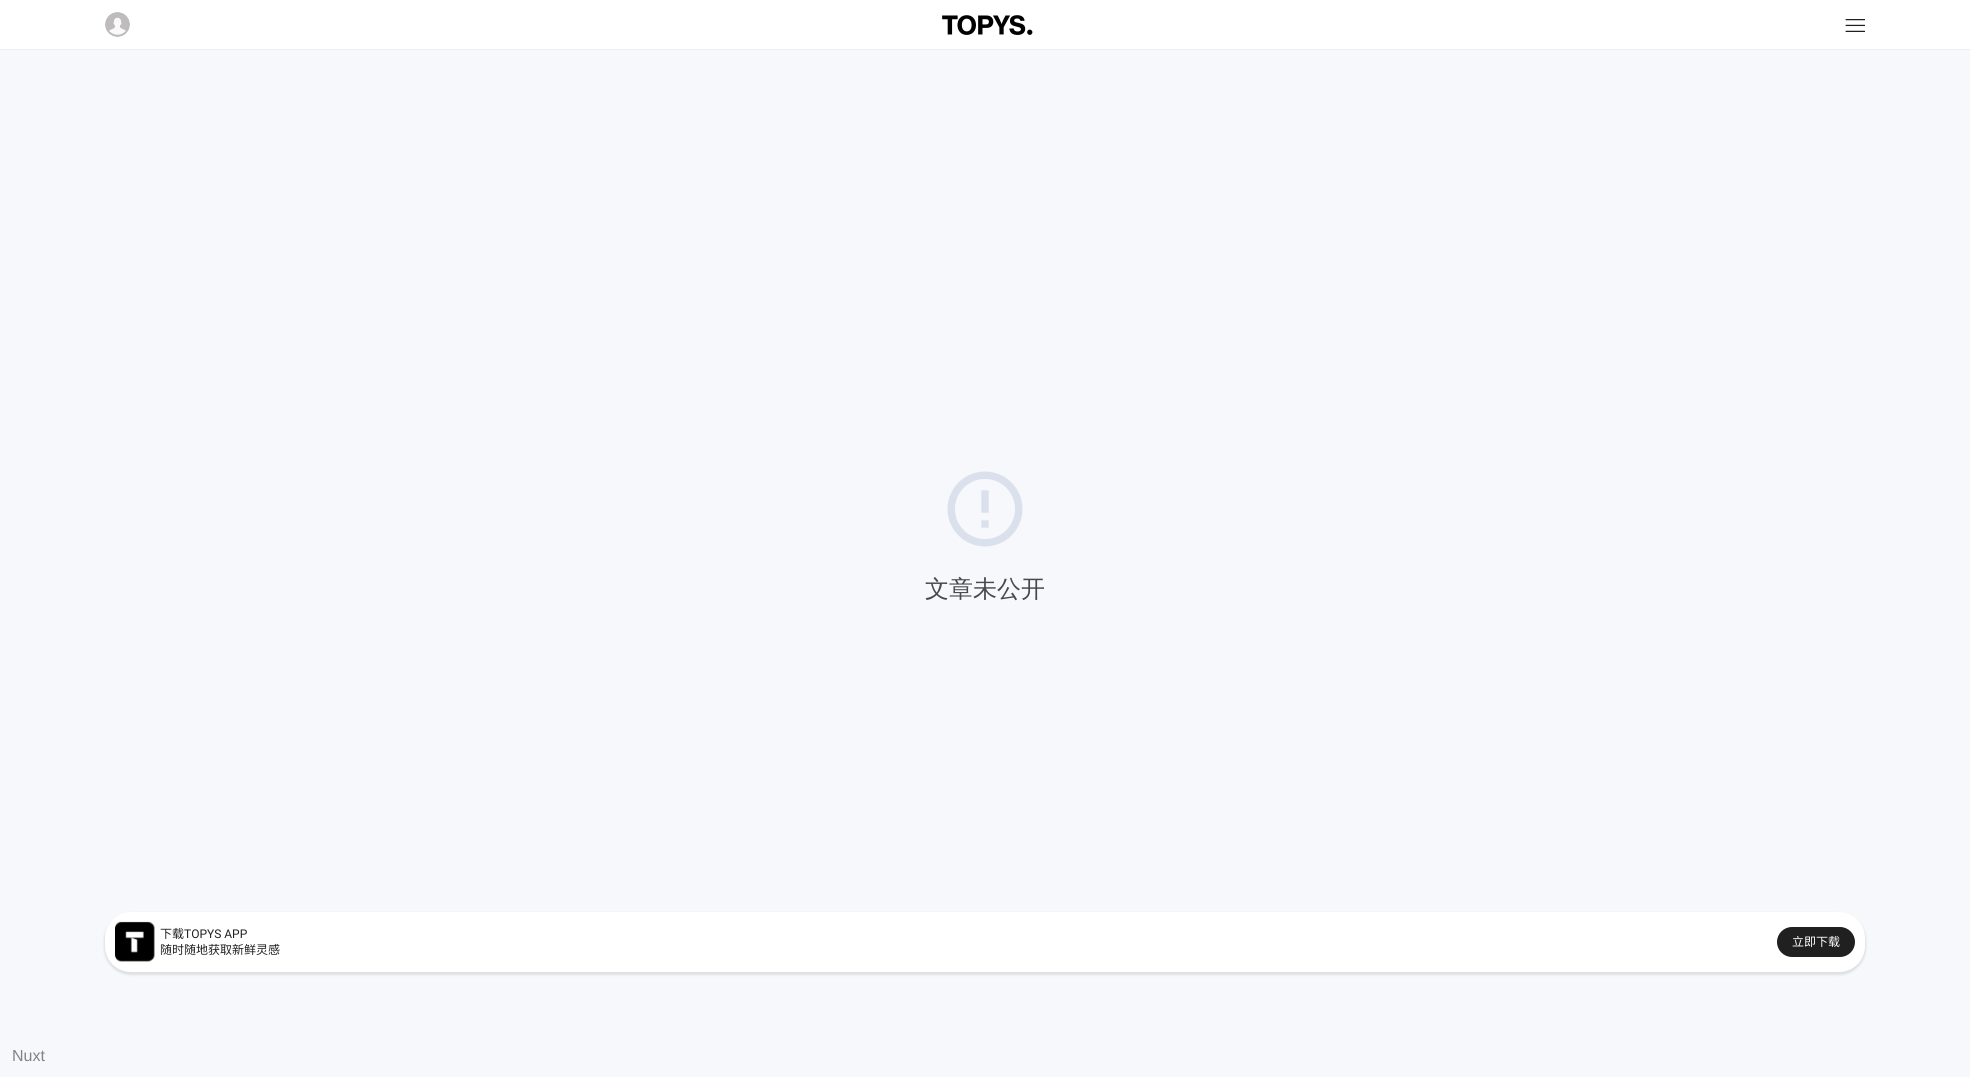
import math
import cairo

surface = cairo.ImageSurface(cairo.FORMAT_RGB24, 1970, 1077)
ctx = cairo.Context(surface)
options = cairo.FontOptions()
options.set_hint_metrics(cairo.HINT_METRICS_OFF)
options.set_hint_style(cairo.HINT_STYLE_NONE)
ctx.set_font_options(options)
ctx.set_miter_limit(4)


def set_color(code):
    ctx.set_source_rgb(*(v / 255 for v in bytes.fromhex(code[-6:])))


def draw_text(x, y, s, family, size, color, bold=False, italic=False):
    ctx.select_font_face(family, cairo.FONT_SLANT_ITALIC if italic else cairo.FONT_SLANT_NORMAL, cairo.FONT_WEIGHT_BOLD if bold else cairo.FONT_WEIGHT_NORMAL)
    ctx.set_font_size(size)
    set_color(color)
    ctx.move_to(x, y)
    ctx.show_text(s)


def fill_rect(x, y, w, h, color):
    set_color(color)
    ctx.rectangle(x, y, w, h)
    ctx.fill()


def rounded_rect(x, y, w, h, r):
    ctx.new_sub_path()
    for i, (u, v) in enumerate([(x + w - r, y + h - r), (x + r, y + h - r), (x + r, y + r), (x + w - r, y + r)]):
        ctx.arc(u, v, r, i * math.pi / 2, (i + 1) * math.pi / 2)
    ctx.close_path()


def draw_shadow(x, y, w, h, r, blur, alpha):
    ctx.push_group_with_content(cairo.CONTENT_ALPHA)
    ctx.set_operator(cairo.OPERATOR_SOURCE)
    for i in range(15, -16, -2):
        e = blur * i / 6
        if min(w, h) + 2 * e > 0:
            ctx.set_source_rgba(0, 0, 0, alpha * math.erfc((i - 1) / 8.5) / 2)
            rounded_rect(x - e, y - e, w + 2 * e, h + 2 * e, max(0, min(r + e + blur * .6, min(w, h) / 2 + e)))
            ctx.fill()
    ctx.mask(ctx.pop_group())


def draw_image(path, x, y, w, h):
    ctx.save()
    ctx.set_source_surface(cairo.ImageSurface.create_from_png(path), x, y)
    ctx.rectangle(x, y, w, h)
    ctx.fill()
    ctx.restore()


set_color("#f7f8fb")
ctx.paint()
fill_rect(0, 0, 1970, 49, "#ffffff")
fill_rect(0, 49, 1970, 1, "#edeeee")
draw_image("assets/img1.png", 105, 12, 25, 25)
draw_image("assets/img2.png", 942, 15, 91, 20)
draw_image("assets/img3.png", 1845, 19, 20, 13)
draw_image("assets/img4.png", 947, 471, 76, 76)
draw_text(925, 597, "文章未公开", "WenQuanYi Zen Hei Medium", 24, "#47494e")
draw_text(12, 1061, "Nuxt", "Liberation Sans", 16, "#7f828b")
set_color("#000000")
draw_shadow(104, 913, 1762, 62, 27, 1, 0.1)
set_color("#ffffff")
rounded_rect(105, 912, 1760, 60, 26)
ctx.fill()
draw_image("assets/img5.png", 115, 921, 40, 41)
draw_text(160, 938, "下载", "Noto Sans SC", 12, "#202020")
draw_text(184, 938, "TOPYS APP", "Roboto", 12, "#202020")
draw_text(160, 954, "随时随地获取新鲜灵感", "Noto Sans SC", 12, "#202020")
rounded_rect(1777, 927, 78, 30, 15)
ctx.fill()
draw_text(1792, 946, "立即下载", "Noto Sans SC", 12, "#ffffff")
surface.write_to_png("output.png")
